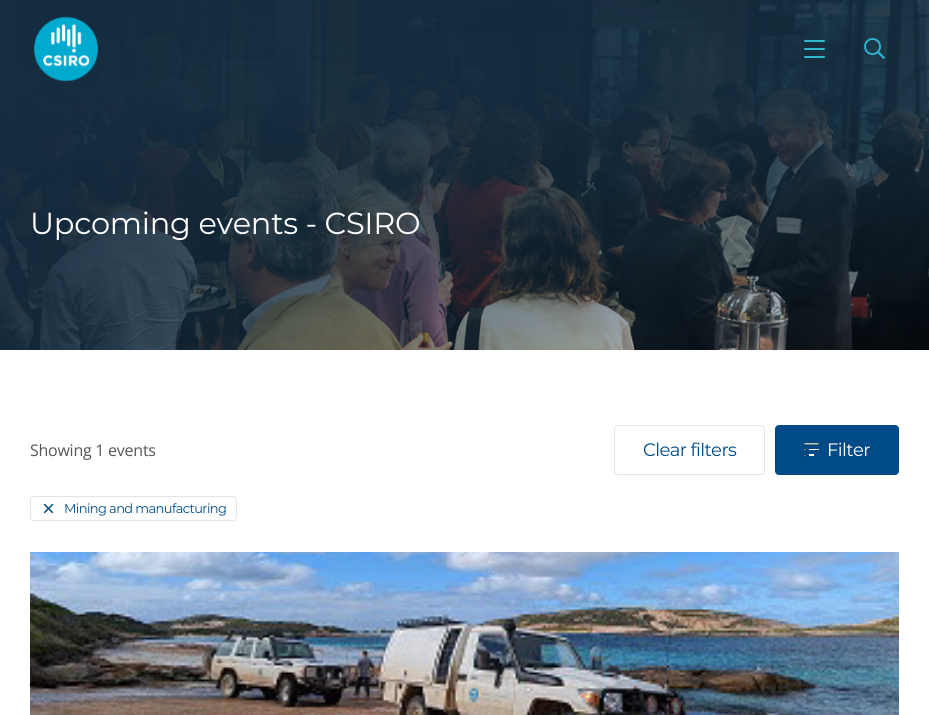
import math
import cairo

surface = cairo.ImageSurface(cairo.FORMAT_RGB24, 929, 715)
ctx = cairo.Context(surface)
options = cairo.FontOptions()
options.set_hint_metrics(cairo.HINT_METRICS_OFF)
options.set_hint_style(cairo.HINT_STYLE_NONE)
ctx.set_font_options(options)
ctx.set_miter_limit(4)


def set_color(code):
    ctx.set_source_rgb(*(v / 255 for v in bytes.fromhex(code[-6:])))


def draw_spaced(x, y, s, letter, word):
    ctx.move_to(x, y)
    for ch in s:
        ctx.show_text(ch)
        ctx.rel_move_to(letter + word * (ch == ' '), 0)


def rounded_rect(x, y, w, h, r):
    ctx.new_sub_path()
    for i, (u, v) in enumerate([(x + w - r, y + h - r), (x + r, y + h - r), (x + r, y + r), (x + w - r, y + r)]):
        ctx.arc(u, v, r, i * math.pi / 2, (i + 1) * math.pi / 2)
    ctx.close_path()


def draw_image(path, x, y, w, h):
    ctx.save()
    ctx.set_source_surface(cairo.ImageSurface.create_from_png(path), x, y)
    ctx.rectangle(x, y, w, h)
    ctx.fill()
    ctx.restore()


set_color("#ffffff")
ctx.paint()
draw_image("assets/img3.png", 0, 0, 929, 350)
draw_image("assets/img1.png", 34, 16, 64, 65)
set_color("#30b7d4")
rounded_rect(804, 48, 21, 2, 1)
ctx.fill()
rounded_rect(804, 40, 21, 2, 1)
ctx.fill()
rounded_rect(804, 56, 21, 2, 1)
ctx.fill()
draw_image("assets/img2.png", 864, 38, 21, 21)
ctx.select_font_face("Montserrat")
ctx.set_font_size(30.4)
set_color("#ffffff")
draw_spaced(30, 234, "Upcoming events - CSIRO", -0.25, 0)
ctx.select_font_face("Open Sans")
ctx.set_font_size(16)
set_color("#555658")
draw_spaced(30, 456, "Showing 1 events", -0.25, 0)
rounded_rect(614.5, 425.5, 150, 49, 3.5)
set_color("#e4e4e4")
ctx.set_line_width(1)
ctx.stroke()
ctx.select_font_face("Montserrat")
ctx.set_font_size(18)
set_color("#004b87")
draw_spaced(643, 456, "Clear filters", -0.6, 0)
rounded_rect(775.5, 425.5, 123, 49, 3.5)
ctx.fill_preserve()
ctx.stroke()
draw_image("assets/img4.png", 804, 442, 15, 15)
set_color("#ffffff")
draw_spaced(827, 456, "Filter", -0.6, 0)
rounded_rect(30.5, 496.5, 206, 24, 3.5)
set_color("#e4e4e4")
ctx.stroke()
draw_image("assets/img5.png", 43, 503, 11, 11)
ctx.set_font_size(13)
set_color("#004b87")
draw_spaced(64, 513, "Mining and manufacturing", -0.6, 0)
draw_image("assets/img6.png", 30, 552, 869, 163)
surface.write_to_png("output.png")
